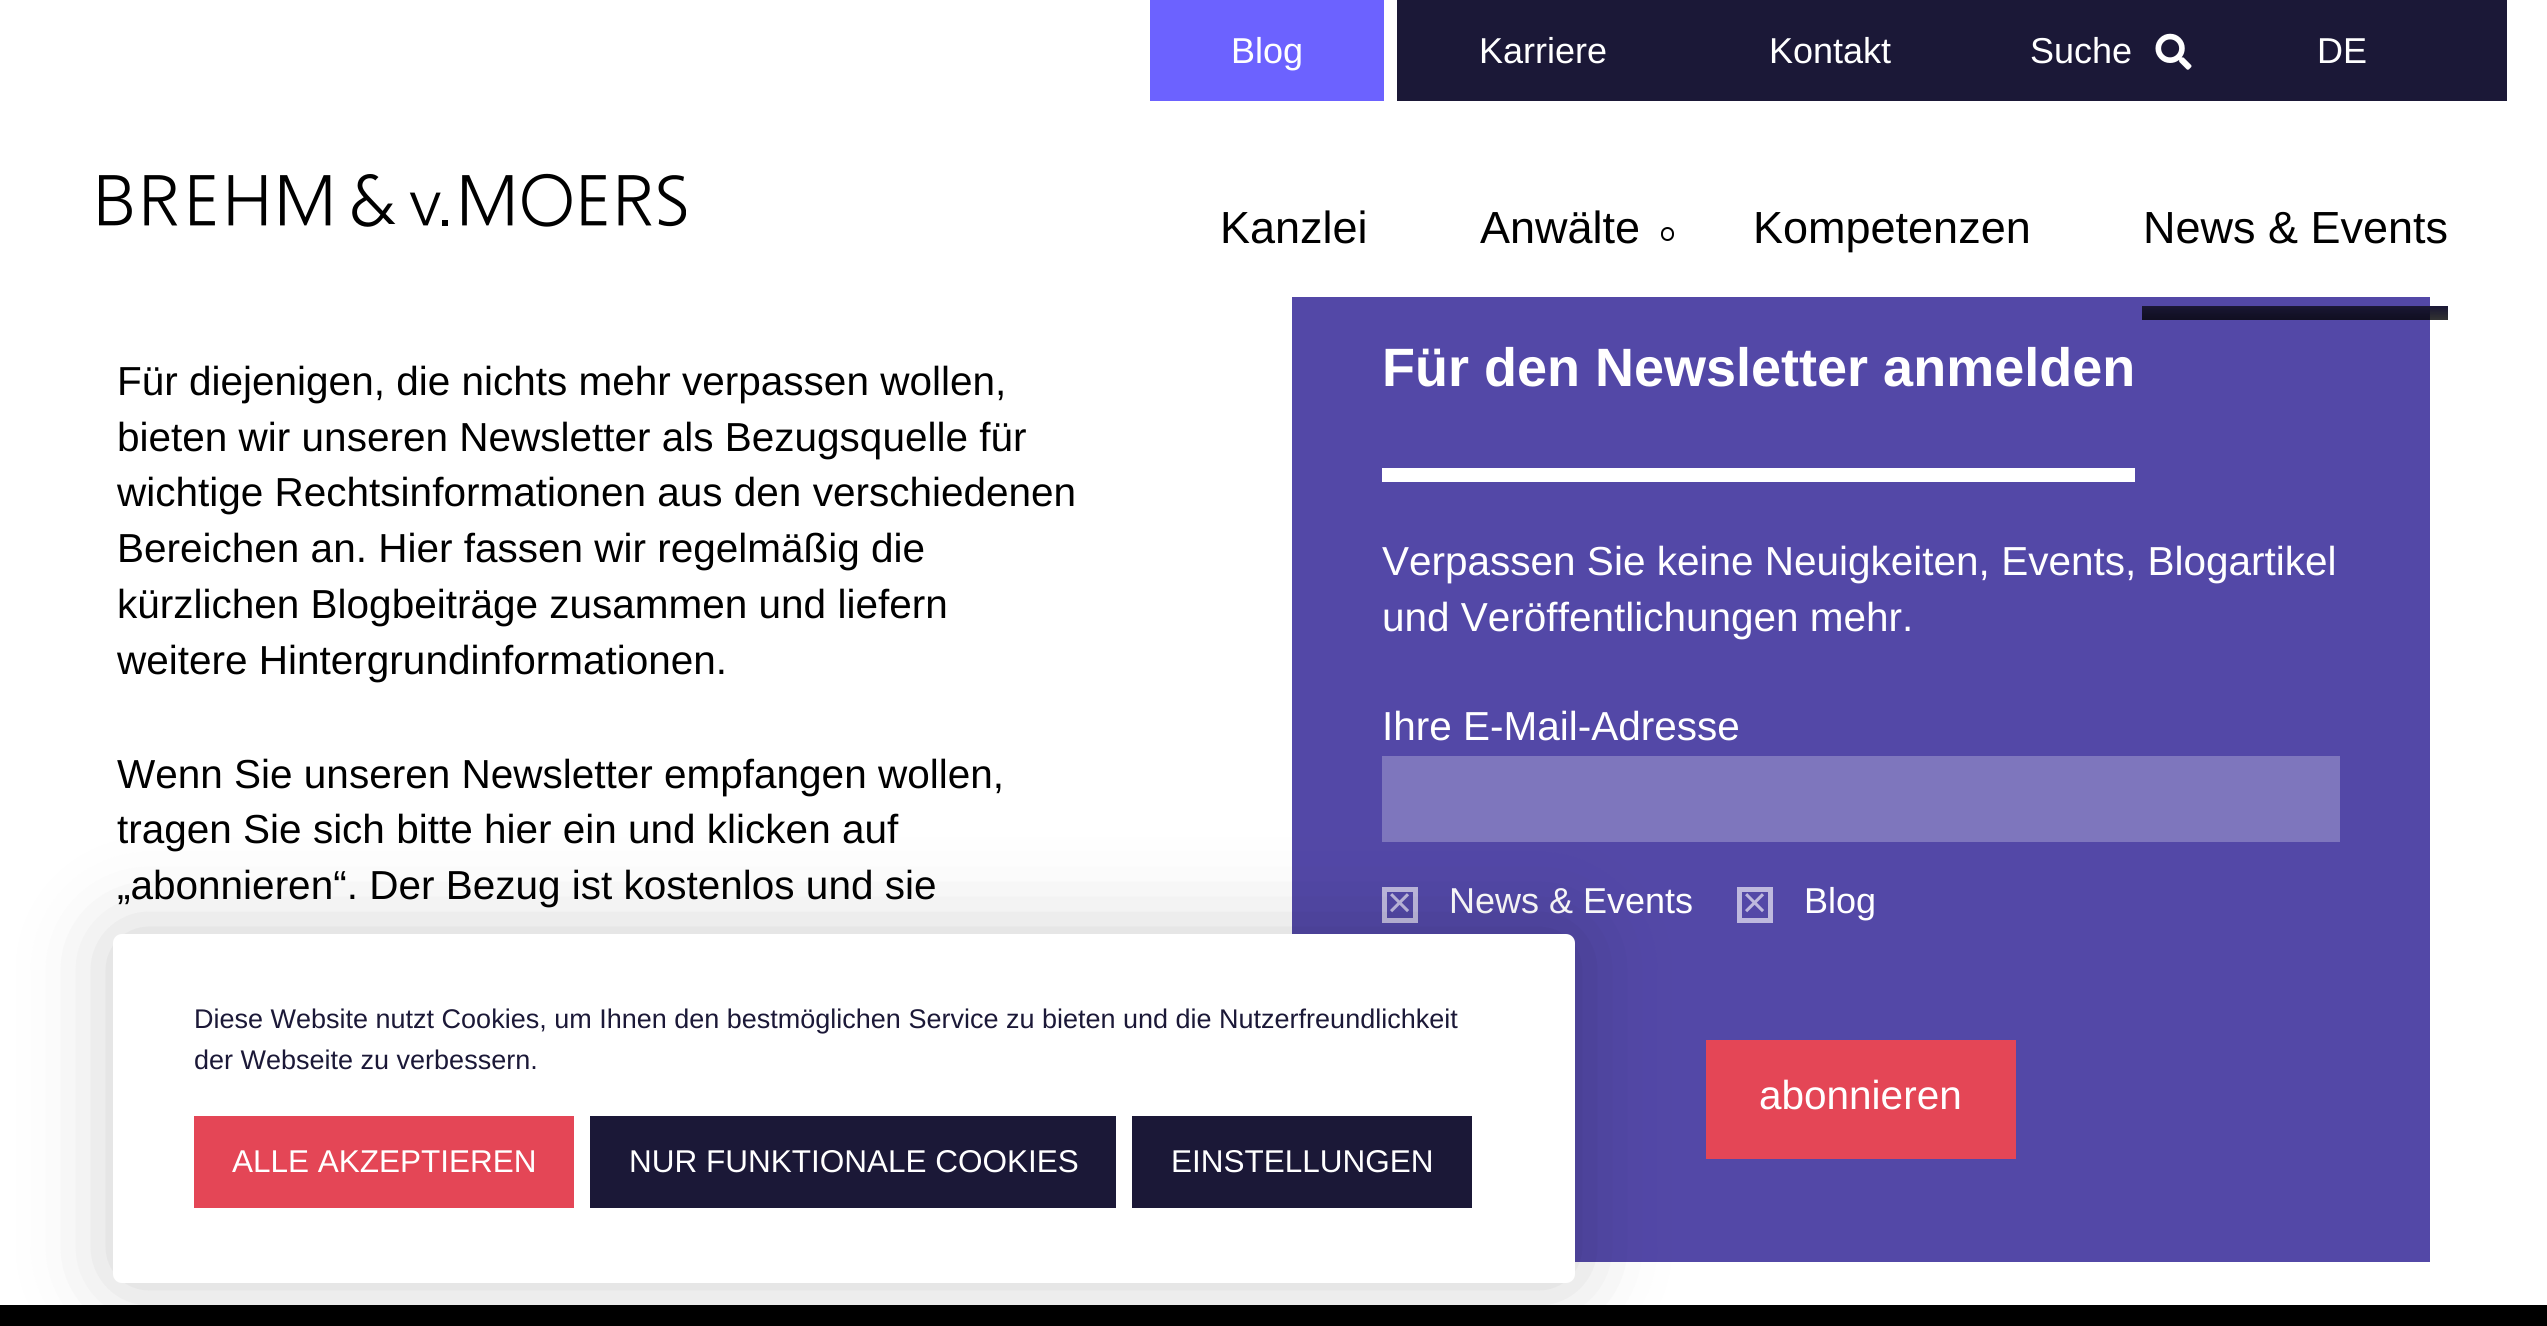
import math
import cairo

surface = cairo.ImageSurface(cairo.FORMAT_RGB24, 2547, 1326)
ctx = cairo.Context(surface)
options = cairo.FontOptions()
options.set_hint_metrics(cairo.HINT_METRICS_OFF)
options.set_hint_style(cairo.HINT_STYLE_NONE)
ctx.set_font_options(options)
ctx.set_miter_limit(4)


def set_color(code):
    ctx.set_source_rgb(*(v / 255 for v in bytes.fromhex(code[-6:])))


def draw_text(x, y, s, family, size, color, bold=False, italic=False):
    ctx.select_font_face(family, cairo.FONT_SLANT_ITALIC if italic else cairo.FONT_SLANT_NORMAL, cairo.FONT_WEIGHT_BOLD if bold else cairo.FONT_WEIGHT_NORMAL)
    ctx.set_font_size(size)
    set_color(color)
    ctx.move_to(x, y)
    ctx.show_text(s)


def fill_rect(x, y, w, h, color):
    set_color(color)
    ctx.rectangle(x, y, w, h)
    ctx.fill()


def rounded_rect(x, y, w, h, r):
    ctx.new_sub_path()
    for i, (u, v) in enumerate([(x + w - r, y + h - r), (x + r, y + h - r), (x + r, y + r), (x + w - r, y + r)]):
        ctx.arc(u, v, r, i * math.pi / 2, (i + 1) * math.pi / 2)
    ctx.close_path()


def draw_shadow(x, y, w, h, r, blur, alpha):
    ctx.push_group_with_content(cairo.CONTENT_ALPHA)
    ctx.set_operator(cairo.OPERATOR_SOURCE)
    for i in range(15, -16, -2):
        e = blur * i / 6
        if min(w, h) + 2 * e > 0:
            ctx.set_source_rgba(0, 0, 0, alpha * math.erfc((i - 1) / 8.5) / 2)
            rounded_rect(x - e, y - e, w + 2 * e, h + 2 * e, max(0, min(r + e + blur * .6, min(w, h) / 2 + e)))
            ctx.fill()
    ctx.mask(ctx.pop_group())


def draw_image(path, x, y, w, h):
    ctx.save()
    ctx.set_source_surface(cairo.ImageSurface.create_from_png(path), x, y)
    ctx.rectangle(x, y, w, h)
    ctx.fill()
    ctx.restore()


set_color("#ffffff")
ctx.paint()
fill_rect(1150, 0, 234, 101, "#6c62ff")
draw_text(1231, 63, "Blog", "Liberation Sans", 36, "#ffffff")
fill_rect(1397, 0, 1110, 101, "#1b1837")
draw_text(1479, 63, "Karriere", "Liberation Sans", 36, "#ffffff")
draw_text(1769, 63, "Kontakt", "Liberation Sans", 36, "#ffffff")
draw_text(2030, 63, "Suche", "Liberation Sans", 36, "#ffffff")
draw_image("assets/img1.png", 2155, 33, 37, 37)
draw_text(2317, 63, "DE", "Liberation Sans", 36, "#ffffff")
draw_image("assets/img2.png", 99, 173, 587, 54)
draw_text(1220, 243, "Kanzlei", "Liberation Sans", 45, "#000000")
draw_text(1480, 243, "Anwälte", "Liberation Sans", 45, "#000000")
rounded_rect(1662, 228, 11, 12, 5.5)
ctx.stroke()
draw_text(1753, 243, "Kompetenzen", "Liberation Sans", 45, "#000000")
draw_text(2143, 243, "News & Events", "Liberation Sans", 45, "#000000")
fill_rect(1292, 297, 1138, 965, "#5348a7")
gradient = cairo.LinearGradient(2295, 306, 2295, 320)
gradient.add_color_stop_rgba(0, 0.106, 0.094, 0.216, 1)
gradient.add_color_stop_rgba(1, 0, 0, 0, 0.8)
ctx.set_source(gradient)
ctx.rectangle(2142, 306, 306, 14)
ctx.fill()
draw_text(117, 395, "Für diejenigen, die nichts mehr verpassen wollen,", "Liberation Sans", 40.5, "#000000")
draw_text(117, 451, "bieten wir unseren Newsletter als Bezugsquelle für", "Liberation Sans", 40.5, "#000000")
draw_text(117, 506, "wichtige Rechtsinformationen aus den verschiedenen", "Liberation Sans", 40.5, "#000000")
draw_text(117, 562, "Bereichen an. Hier fassen wir regelmäßig die", "Liberation Sans", 40.5, "#000000")
draw_text(117, 618, "kürzlichen Blogbeiträge zusammen und liefern", "Liberation Sans", 40.5, "#000000")
draw_text(117, 674, "weitere Hintergrundinformationen.", "Liberation Sans", 40.5, "#000000")
draw_text(117, 788, "Wenn Sie unseren Newsletter empfangen wollen,", "Liberation Sans", 40.5, "#000000")
draw_text(117, 843, "tragen Sie sich bitte hier ein und klicken auf", "Liberation Sans", 40.5, "#000000")
draw_text(117, 899, "„abonnieren“. Der Bezug ist kostenlos und sie", "Liberation Sans", 40.5, "#000000")
draw_text(1382, 386, "Für den Newsletter anmelden", "Liberation Sans", 54, "#ffffff", bold=True)
fill_rect(1382, 468, 753, 14, "#ffffff")
draw_text(1382, 575, "Verpassen Sie keine Neuigkeiten, Events, Blogartikel", "Liberation Sans", 40.5, "#ffffff")
draw_text(1382, 631, "und Veröffentlichungen mehr.", "Liberation Sans", 40.5, "#ffffff")
draw_text(1382, 740, "Ihre E-Mail-Adresse", "Liberation Sans", 40.5, "#ffffff")
fill_rect(1382, 756, 958, 86, "#7e76bd")
ctx.rectangle(1384.5, 889.5, 31, 31)
set_color("#beb9de")
ctx.set_line_width(5)
ctx.stroke()
draw_text(1387, 917, "×", "Liberation Sans", 43, "#beb9de")
draw_text(1449, 913, "News & Events", "Liberation Sans", 36, "#ffffff")
ctx.rectangle(1739.5, 889.5, 31, 31)
set_color("#beb9de")
ctx.stroke()
draw_text(1742, 917, "×", "Liberation Sans", 43, "#beb9de")
draw_text(1804, 913, "Blog", "Liberation Sans", 36, "#ffffff")
fill_rect(1706, 1040, 310, 119, "#e44656")
draw_text(1759, 1109, "abonnieren", "Liberation Sans", 40.5, "#ffffff")
fill_rect(0, 1305, 2547, 21, "#000000")
set_color("#000000")
draw_shadow(113, 934, 1462, 349, 9, 45, 0.2)
set_color("#ffffff")
rounded_rect(113, 934, 1462, 349, 9)
ctx.fill()
draw_text(194, 1028, "Diese Website nutzt Cookies, um Ihnen den bestmöglichen Service zu bieten und die Nutzerfreundlichkeit", "Liberation Sans", 27, "#1b1837")
draw_text(194, 1069, "der Webseite zu verbessern.", "Liberation Sans", 27, "#1b1837")
fill_rect(194, 1116, 380, 92, "#e44656")
draw_text(232, 1172, "ALLE AKZEPTIEREN", "Liberation Sans", 31.5, "#ffffff")
fill_rect(590, 1116, 526, 92, "#1b1837")
draw_text(629, 1172, "NUR FUNKTIONALE COOKIES", "Liberation Sans", 31.5, "#ffffff")
fill_rect(1132, 1116, 340, 92, "#1b1837")
draw_text(1171, 1172, "EINSTELLUNGEN", "Liberation Sans", 31.5, "#ffffff")
surface.write_to_png("output.png")
